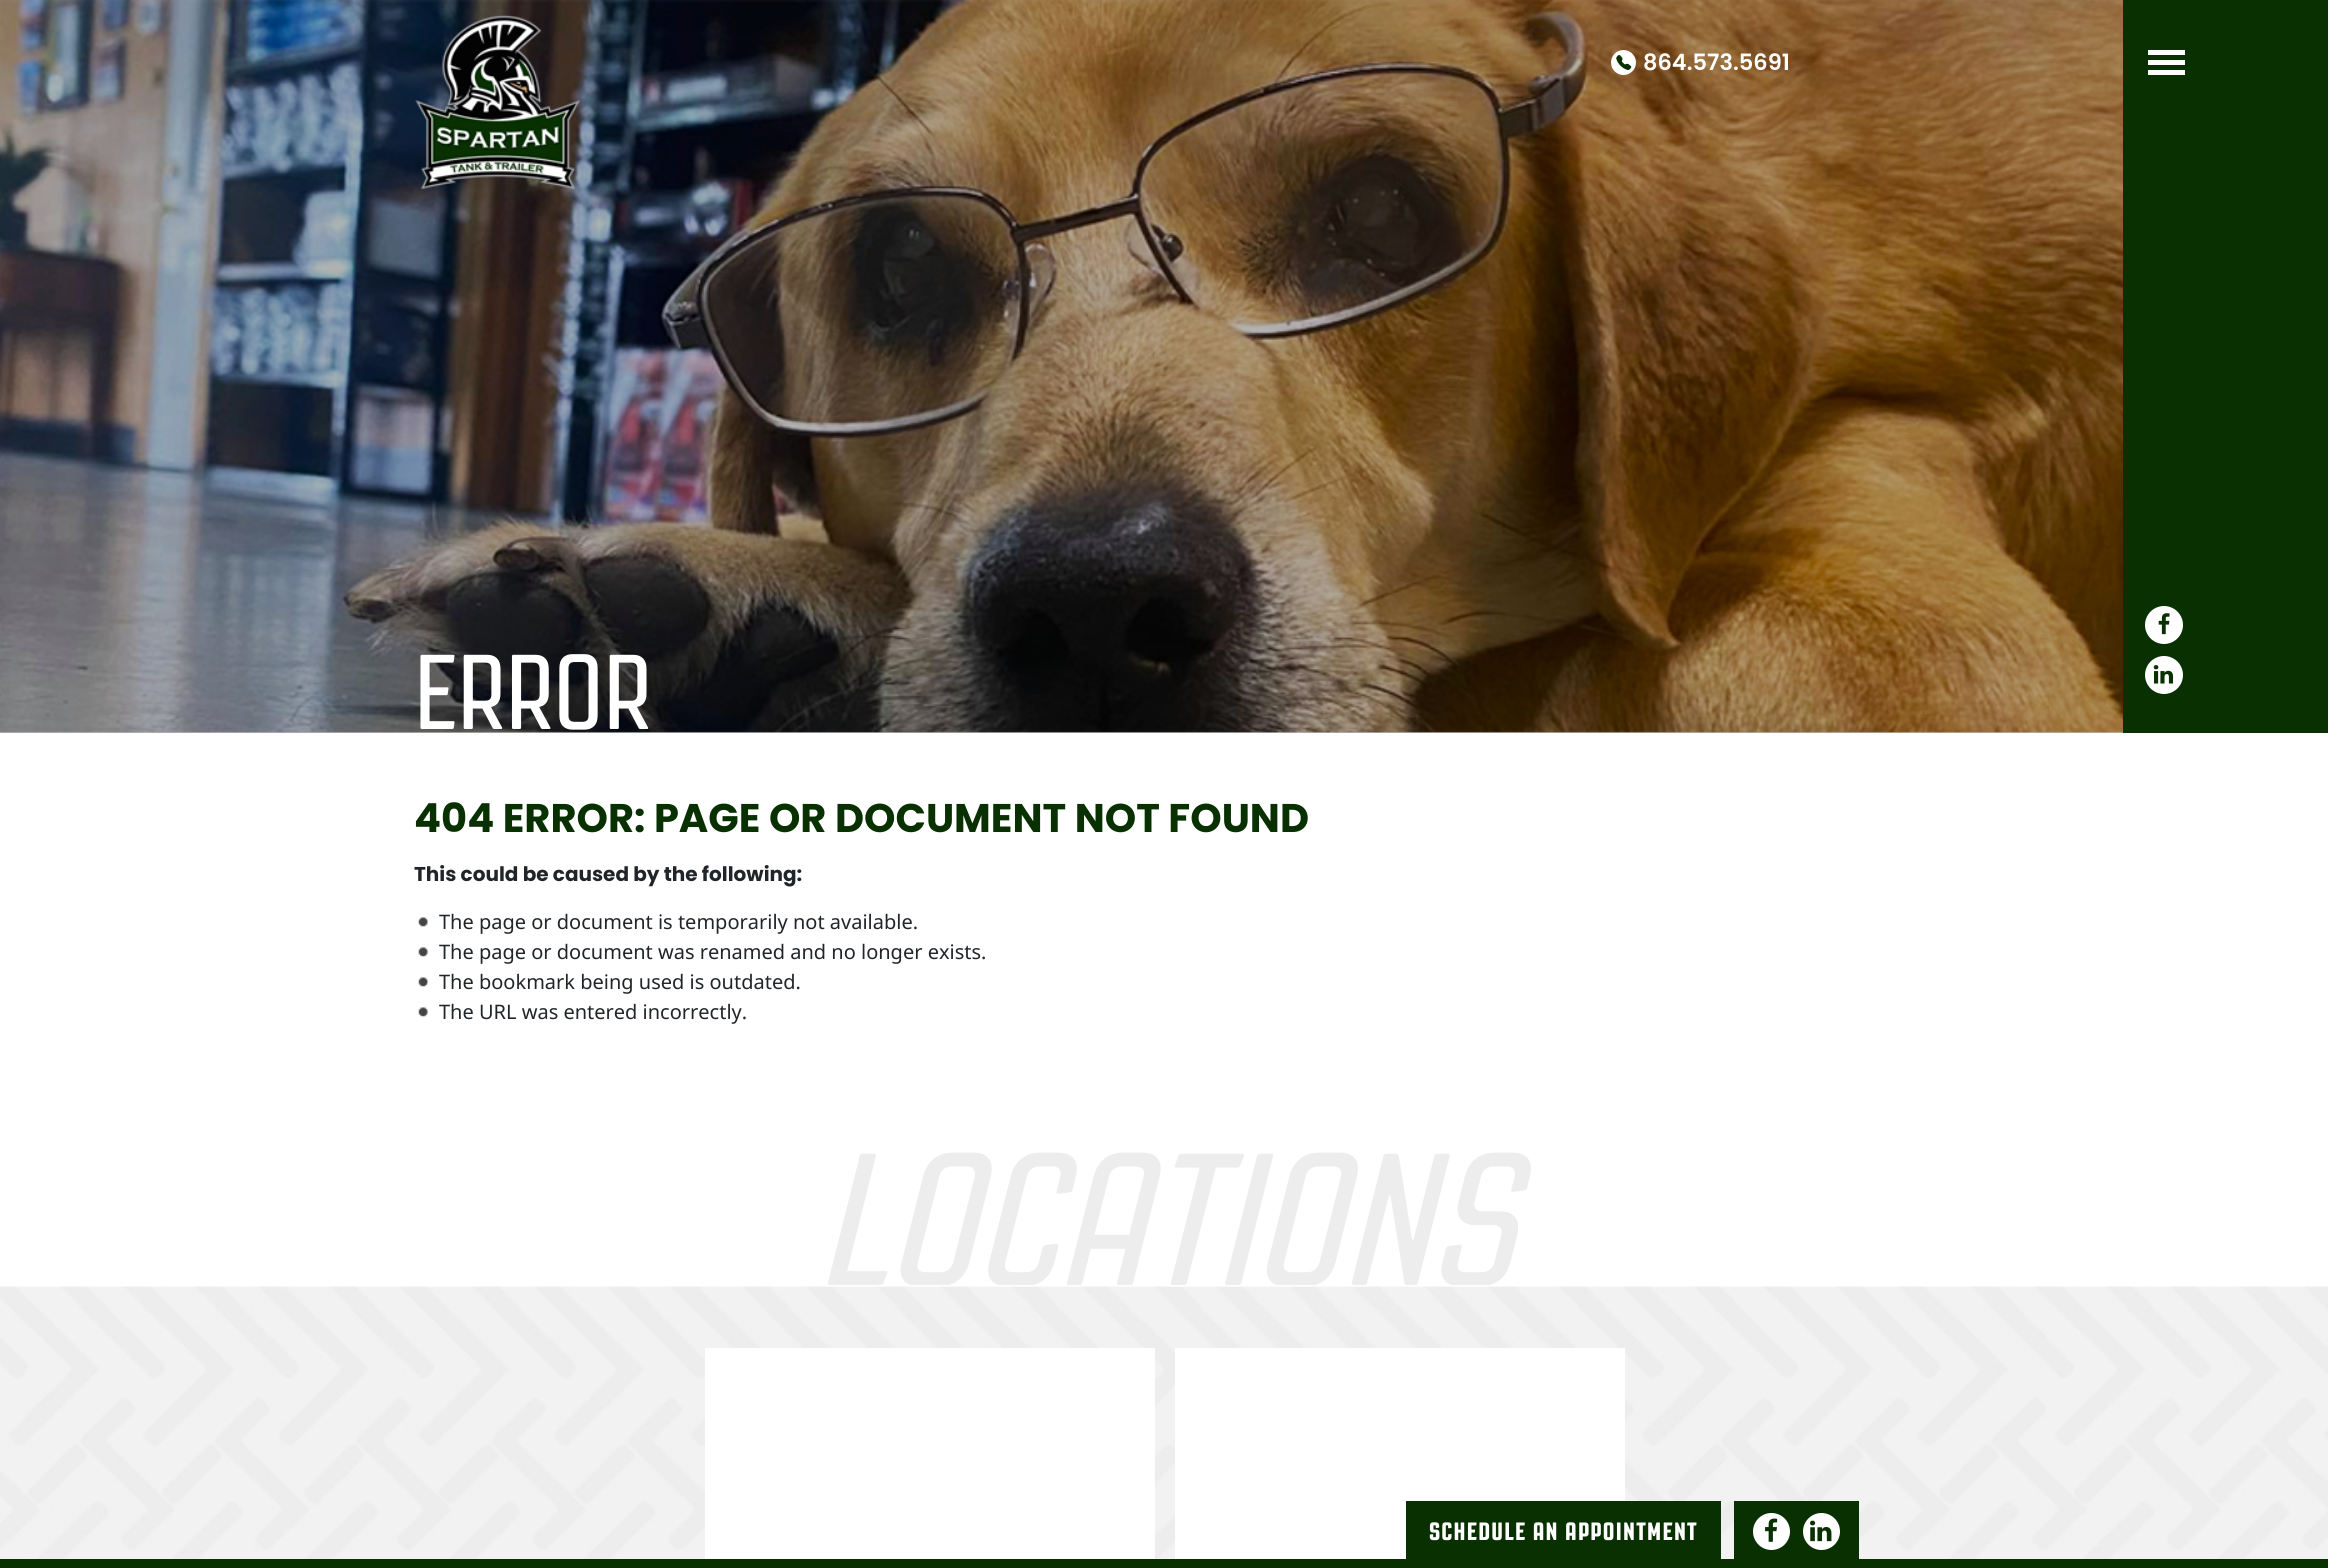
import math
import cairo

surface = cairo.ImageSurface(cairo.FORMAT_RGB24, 2328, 1568)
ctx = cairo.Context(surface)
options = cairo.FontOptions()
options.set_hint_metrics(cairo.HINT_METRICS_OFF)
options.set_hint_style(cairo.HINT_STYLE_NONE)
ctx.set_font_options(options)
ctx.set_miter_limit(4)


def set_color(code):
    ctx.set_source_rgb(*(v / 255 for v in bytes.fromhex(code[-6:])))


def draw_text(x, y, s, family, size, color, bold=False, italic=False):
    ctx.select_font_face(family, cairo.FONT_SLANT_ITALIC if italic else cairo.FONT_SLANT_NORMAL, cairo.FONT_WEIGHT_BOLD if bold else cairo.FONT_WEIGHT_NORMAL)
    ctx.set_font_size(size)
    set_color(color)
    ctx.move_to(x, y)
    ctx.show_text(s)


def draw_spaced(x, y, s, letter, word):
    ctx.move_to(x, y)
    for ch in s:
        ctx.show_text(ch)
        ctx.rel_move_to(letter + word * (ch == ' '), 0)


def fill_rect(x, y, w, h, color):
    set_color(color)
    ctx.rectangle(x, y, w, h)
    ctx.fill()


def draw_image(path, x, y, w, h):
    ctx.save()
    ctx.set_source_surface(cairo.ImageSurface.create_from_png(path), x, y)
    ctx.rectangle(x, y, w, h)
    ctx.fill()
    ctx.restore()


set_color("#ffffff")
ctx.paint()
fill_rect(0, 732, 2123, 1, "#b3b3b3")
draw_image("assets/img3.png", 0, 0, 2123, 733)
draw_image("assets/img1.png", 415, 15, 165, 174)
set_color("#ffffff")
ctx.arc(1623.5, 62.5, 11, 0, 2 * math.pi)
ctx.fill_preserve()
ctx.set_line_width(3)
ctx.stroke()
draw_image("assets/img2.png", 1616, 55, 16, 15)
draw_text(1643, 70, "864.573.5691", "Poppins SemiBold", 22.5, "#ffffff")
fill_rect(2123, 0, 205, 733, "#083001")
fill_rect(2148, 50, 37, 5, "#ffffff")
fill_rect(2148, 60, 37, 5, "#ffffff")
fill_rect(2148, 70, 37, 5, "#ffffff")
draw_text(414, 729, "ERROR", "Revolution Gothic", 106, "#ffffff")
ctx.new_path()
ctx.arc(2164, 625, 19, 0, 2 * math.pi)
ctx.fill()
draw_image("assets/img4.png", 2158, 613, 12, 22)
ctx.arc(2164, 675, 19, 0, 2 * math.pi)
ctx.fill()
draw_image("assets/img5.png", 2153, 665, 21, 19)
draw_text(414, 832, "404 ERROR: PAGE OR DOCUMENT NOT FOUND", "Poppins", 40, "#083001", bold=True)
draw_text(414, 881, "This could be caused by the following:", "Poppins", 20, "#212529", bold=True)
draw_image("assets/img6.png", 418, 917, 10, 10)
draw_text(439, 929, "The page or document is temporarily not available.", "Noto Sans", 20, "#212529")
draw_image("assets/img6.png", 418, 947, 10, 10)
draw_text(439, 959, "The page or document was renamed and no longer exists.", "Noto Sans", 20, "#212529")
draw_image("assets/img6.png", 418, 977, 10, 10)
draw_text(439, 989, "The bookmark being used is outdated.", "Noto Sans", 20, "#212529")
draw_image("assets/img6.png", 418, 1007, 10, 10)
draw_text(439, 1019, "The URL was entered incorrectly.", "Noto Sans", 20, "#212529")
draw_text(816, 1285, "LOCATIONS", "Revolution Gothic", 187.5, "#ededed", italic=True)
draw_image("assets/img7.png", 0, 1285, 2328, 274)
fill_rect(705, 1348, 450, 211, "#ffffff")
fill_rect(1175, 1348, 450, 211, "#ffffff")
fill_rect(1406, 1501, 315, 58, "#083001")
ctx.select_font_face("Revolution Gothic ExtraBold")
ctx.set_font_size(25)
set_color("#ffffff")
draw_spaced(1429, 1540, "SCHEDULE AN APPOINTMENT", 1.25, 0)
fill_rect(1734, 1501, 125, 58, "#083001")
set_color("#ffffff")
ctx.new_path()
ctx.arc(1771.5, 1531.5, 18.5, 0, 2 * math.pi)
ctx.fill()
draw_image("assets/img8.png", 1765, 1518, 13, 24)
ctx.arc(1821.5, 1531.5, 18.5, 0, 2 * math.pi)
ctx.fill()
draw_image("assets/img9.png", 1810, 1520, 22, 22)
fill_rect(0, 1559, 2328, 9, "#083001")
surface.write_to_png("output.png")
